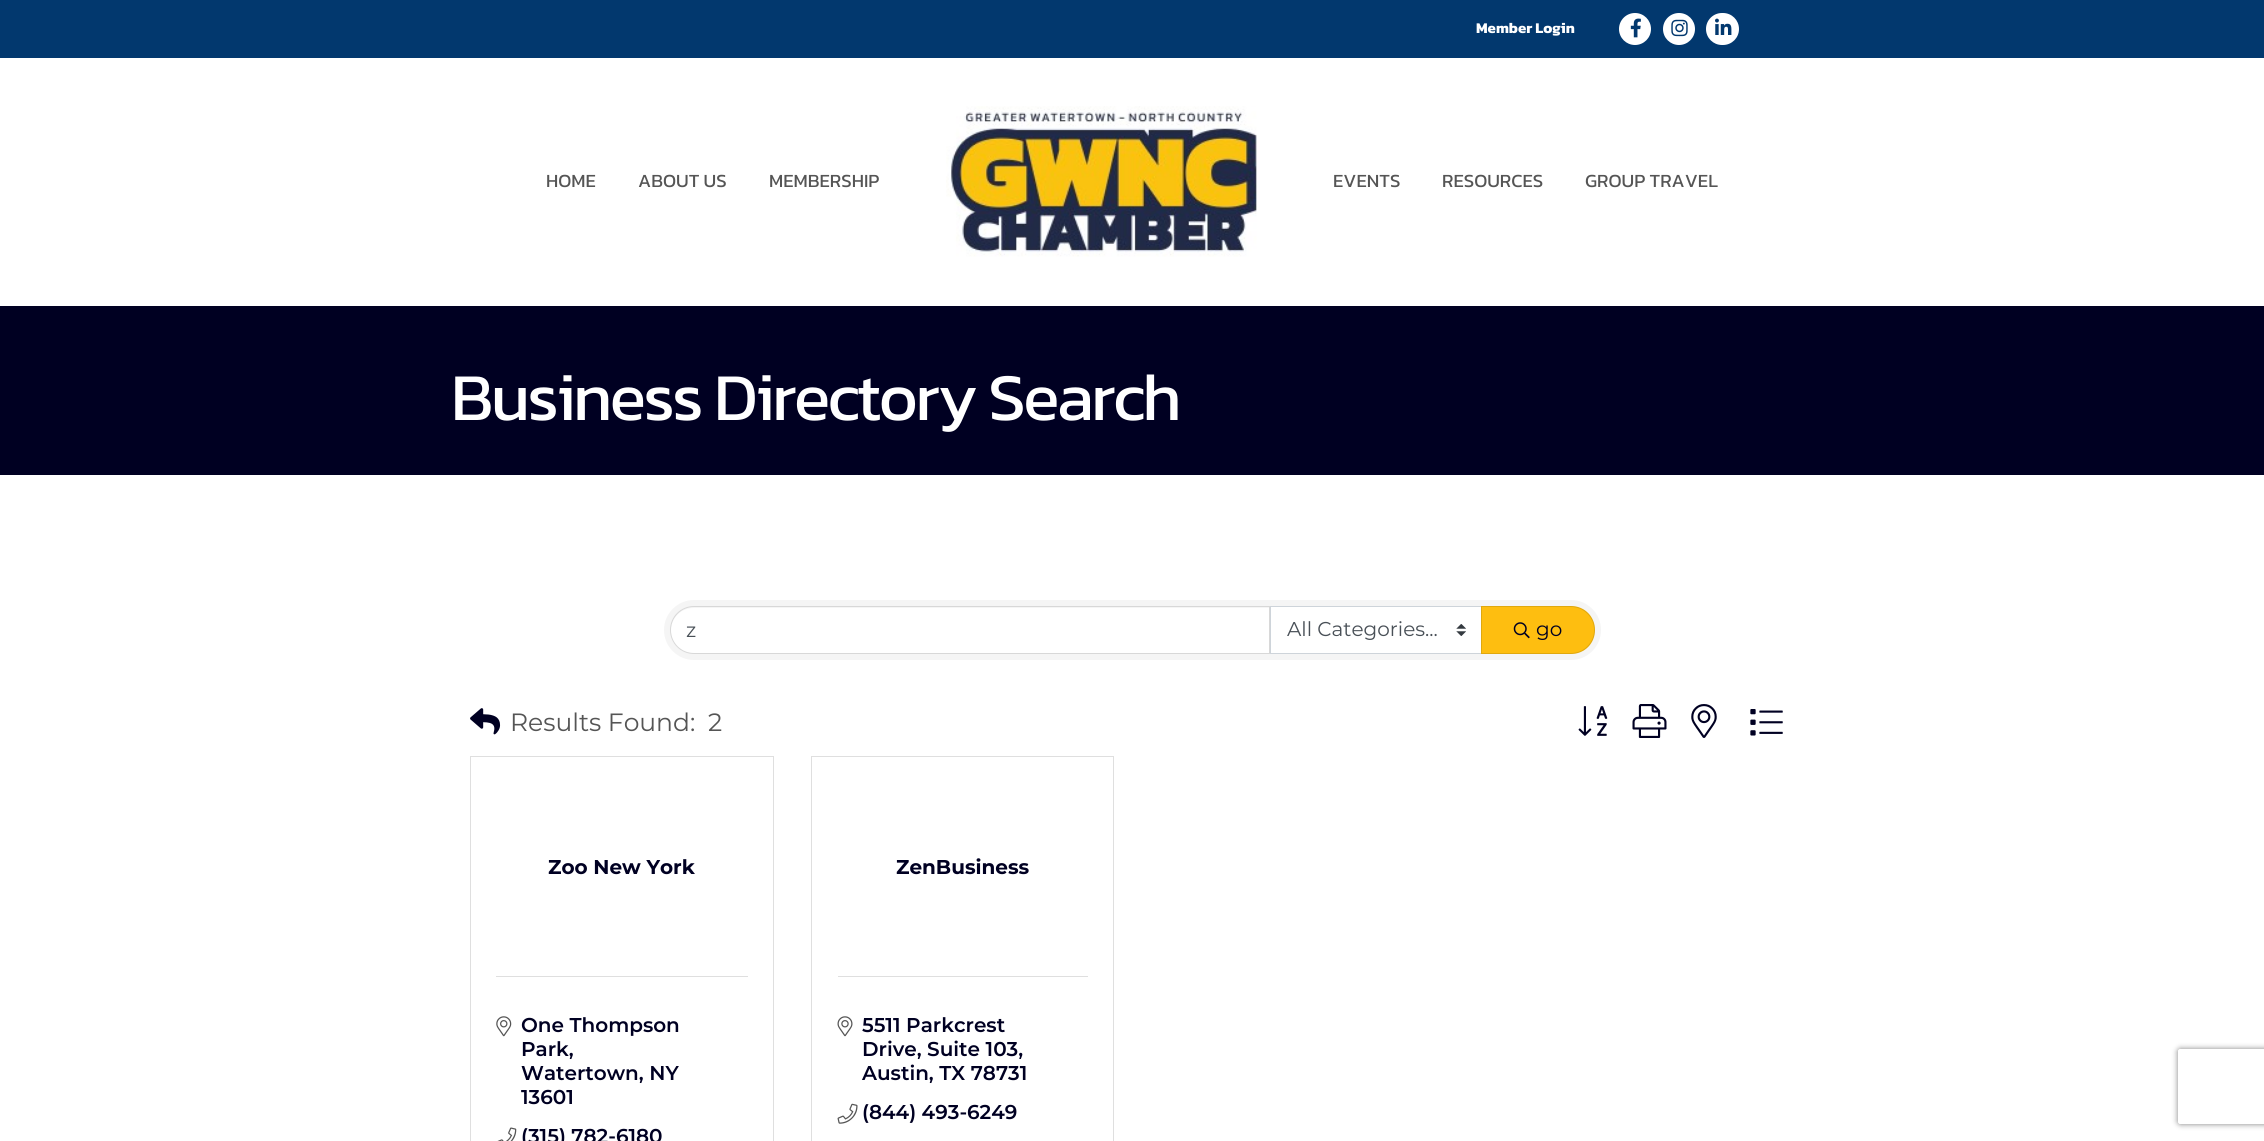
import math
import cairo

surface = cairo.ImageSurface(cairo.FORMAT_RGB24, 2264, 1141)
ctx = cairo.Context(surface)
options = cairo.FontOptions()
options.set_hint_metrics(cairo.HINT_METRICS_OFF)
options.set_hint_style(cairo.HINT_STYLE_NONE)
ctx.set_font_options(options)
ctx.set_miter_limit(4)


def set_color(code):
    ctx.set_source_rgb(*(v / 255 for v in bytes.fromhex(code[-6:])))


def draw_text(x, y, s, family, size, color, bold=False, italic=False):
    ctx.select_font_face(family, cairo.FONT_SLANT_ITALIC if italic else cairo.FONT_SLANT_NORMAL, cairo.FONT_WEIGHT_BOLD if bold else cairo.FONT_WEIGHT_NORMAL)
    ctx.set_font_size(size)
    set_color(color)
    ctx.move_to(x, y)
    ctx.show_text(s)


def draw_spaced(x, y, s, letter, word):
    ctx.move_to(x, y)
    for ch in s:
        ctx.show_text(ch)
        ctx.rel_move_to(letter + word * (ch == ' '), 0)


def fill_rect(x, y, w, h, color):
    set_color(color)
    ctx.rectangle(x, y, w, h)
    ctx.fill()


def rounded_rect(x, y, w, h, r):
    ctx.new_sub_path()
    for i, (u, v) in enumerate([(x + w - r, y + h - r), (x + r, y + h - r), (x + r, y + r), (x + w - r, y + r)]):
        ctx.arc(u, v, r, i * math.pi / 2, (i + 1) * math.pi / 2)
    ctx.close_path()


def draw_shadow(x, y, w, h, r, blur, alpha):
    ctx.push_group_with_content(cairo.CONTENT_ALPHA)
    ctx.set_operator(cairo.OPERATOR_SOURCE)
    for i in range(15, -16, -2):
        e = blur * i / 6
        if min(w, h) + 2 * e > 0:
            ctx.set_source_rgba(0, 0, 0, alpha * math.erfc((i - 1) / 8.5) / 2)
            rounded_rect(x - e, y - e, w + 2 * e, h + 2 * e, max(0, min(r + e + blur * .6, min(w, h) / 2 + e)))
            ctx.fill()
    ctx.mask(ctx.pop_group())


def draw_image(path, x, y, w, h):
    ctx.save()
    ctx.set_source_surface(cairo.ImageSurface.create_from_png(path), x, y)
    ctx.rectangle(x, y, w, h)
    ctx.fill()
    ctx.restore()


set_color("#ffffff")
ctx.paint()
fill_rect(0, 0, 2264, 58, "#02386e")
draw_text(1476, 33, "Member Login", "Kanit", 15, "#ffffff", bold=True)
ctx.new_path()
ctx.arc(1635, 29, 16, 0, 2 * math.pi)
ctx.fill()
draw_image("assets/img1.png", 1630, 18, 11, 20)
ctx.arc(1679, 29, 16, 0, 2 * math.pi)
ctx.fill()
draw_image("assets/img2.png", 1671, 19, 17, 18)
rounded_rect(1706, 13, 33, 32, 16)
ctx.fill()
draw_image("assets/img3.png", 1715, 18, 17, 17)
draw_text(546, 187, "HOME", "Kanit", 18.75, "#555555")
draw_text(638, 187, "ABOUT US", "Kanit", 18.75, "#555555")
draw_text(769, 187, "MEMBERSHIP", "Kanit", 18.75, "#555555")
draw_image("assets/img4.png", 946, 106, 311, 151)
draw_text(1333, 187, "EVENTS", "Kanit", 18.75, "#555555")
draw_text(1442, 187, "RESOURCES", "Kanit", 18.75, "#555555")
draw_text(1585, 187, "GROUP TRAVEL", "Kanit", 18.75, "#555555")
fill_rect(0, 306, 2264, 169, "#000022")
ctx.set_font_size(67.5)
set_color("#ffffff")
draw_spaced(451, 420, "Business Directory Search", -2.5, 0)
set_color("#f5f5f5")
rounded_rect(664, 600, 937, 60, 30)
ctx.fill()
set_color("#ffffff")
ctx.new_path()
ctx.move_to(693.5, 608)
ctx.line_to(1269, 608)
ctx.line_to(1269, 653)
ctx.line_to(693.5, 653)
ctx.curve_to(681, 653, 671, 643, 671, 630.5)
ctx.curve_to(671, 618, 681, 608, 693.5, 608)
ctx.close_path()
ctx.fill()
ctx.new_path()
ctx.move_to(694, 606.5)
ctx.line_to(1269.5, 606.5)
ctx.line_to(1269.5, 653.5)
ctx.line_to(694, 653.5)
ctx.curve_to(681, 653.5, 670.5, 643, 670.5, 630)
ctx.curve_to(670.5, 617, 681, 606.5, 694, 606.5)
ctx.close_path()
ctx.set_source_rgba(0, 0, 0, 0.12)
ctx.set_line_width(1)
ctx.stroke()
draw_text(686, 637, "z", "Montserrat", 20, "#495057")
fill_rect(1271, 607, 210, 46, "#ffffff")
draw_image("assets/img5.png", 1456, 624, 10, 12)
ctx.rectangle(1270.5, 606.5, 212, 47)
set_color("#ced4da")
ctx.stroke()
draw_text(1287, 636, "All Categories...", "Montserrat", 20, "#495057")
set_color("#febe10")
ctx.new_path()
ctx.move_to(1481, 606)
ctx.line_to(1571, 606)
ctx.curve_to(1584.5, 606, 1595, 616.5, 1595, 630)
ctx.curve_to(1595, 643.5, 1584.5, 654, 1571, 654)
ctx.line_to(1481, 654)
ctx.close_path()
ctx.fill()
ctx.new_path()
ctx.move_to(1481.5, 606.5)
ctx.line_to(1571, 606.5)
ctx.curve_to(1584, 606.5, 1594.5, 617, 1594.5, 630)
ctx.curve_to(1594.5, 643, 1584, 653.5, 1571, 653.5)
ctx.line_to(1481.5, 653.5)
ctx.close_path()
ctx.set_source_rgba(0, 0, 0, 0.12)
ctx.stroke()
draw_image("assets/img6.png", 1513, 622, 17, 17)
draw_text(1536, 636, "go", "Montserrat", 20, "#000022")
draw_image("assets/img7.png", 470, 708, 31, 27)
draw_text(510, 731, "Results Found:", "Montserrat", 25, "#555555")
draw_text(708, 731, "2", "Montserrat", 25, "#555555")
draw_image("assets/img8.png", 1578, 706, 30, 30)
draw_image("assets/img9.png", 1632, 704, 35, 34)
draw_image("assets/img10.png", 1691, 704, 26, 34)
draw_image("assets/img11.png", 1750, 709, 33, 27)
ctx.rectangle(470.5, 756.5, 303, 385)
set_color("#dfdfdf")
ctx.stroke()
draw_text(548, 874, "Zoo New York", "Montserrat", 20, "#000022", bold=True)
fill_rect(496, 976, 252, 1, "#dfdfdf")
draw_image("assets/img12.png", 496, 1016, 16, 21)
draw_text(521, 1032, "One Thompson", "Montserrat SemiBold", 20, "#000022")
draw_text(521, 1056, "Park,", "Montserrat SemiBold", 20, "#000022")
draw_text(521, 1080, "Watertown, NY", "Montserrat SemiBold", 20, "#000022")
draw_text(521, 1104, "13601", "Montserrat SemiBold", 20, "#000022")
draw_image("assets/img13.png", 497, 1127, 20, 14)
draw_text(521, 1143, "(315) 782-6180", "Montserrat SemiBold", 20, "#000022")
ctx.rectangle(811.5, 756.5, 302, 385)
set_color("#dfdfdf")
ctx.stroke()
draw_text(896, 874, "ZenBusiness", "Montserrat", 20, "#000022", bold=True)
fill_rect(838, 976, 250, 1, "#dfdfdf")
draw_image("assets/img14.png", 837, 1016, 16, 21)
draw_text(862, 1032, "5511 Parkcrest", "Montserrat SemiBold", 20, "#000022")
draw_text(862, 1056, "Drive, Suite 103,", "Montserrat SemiBold", 20, "#000022")
draw_text(862, 1080, "Austin, TX 78731", "Montserrat SemiBold", 20, "#000022")
draw_image("assets/img15.png", 837, 1103, 21, 21)
draw_text(862, 1119, "(844) 493-6249", "Montserrat SemiBold", 20, "#000022")
ctx.save()
ctx.set_fill_rule(cairo.FILL_RULE_EVEN_ODD)
ctx.new_path()
ctx.move_to(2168, 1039)
ctx.line_to(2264, 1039)
ctx.line_to(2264, 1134)
ctx.line_to(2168, 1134)
ctx.close_path()
ctx.move_to(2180.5, 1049)
ctx.line_to(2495.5, 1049)
ctx.curve_to(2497, 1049, 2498, 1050, 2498, 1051.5)
ctx.line_to(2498, 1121.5)
ctx.curve_to(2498, 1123, 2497, 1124, 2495.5, 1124)
ctx.line_to(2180.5, 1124)
ctx.curve_to(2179, 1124, 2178, 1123, 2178, 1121.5)
ctx.line_to(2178, 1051.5)
ctx.curve_to(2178, 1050, 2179, 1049, 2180.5, 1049)
ctx.close_path()
ctx.clip()
set_color("#808080")
draw_shadow(2178, 1049, 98, 75, 2.5, 3, 1)
ctx.restore()
surface.write_to_png("output.png")
